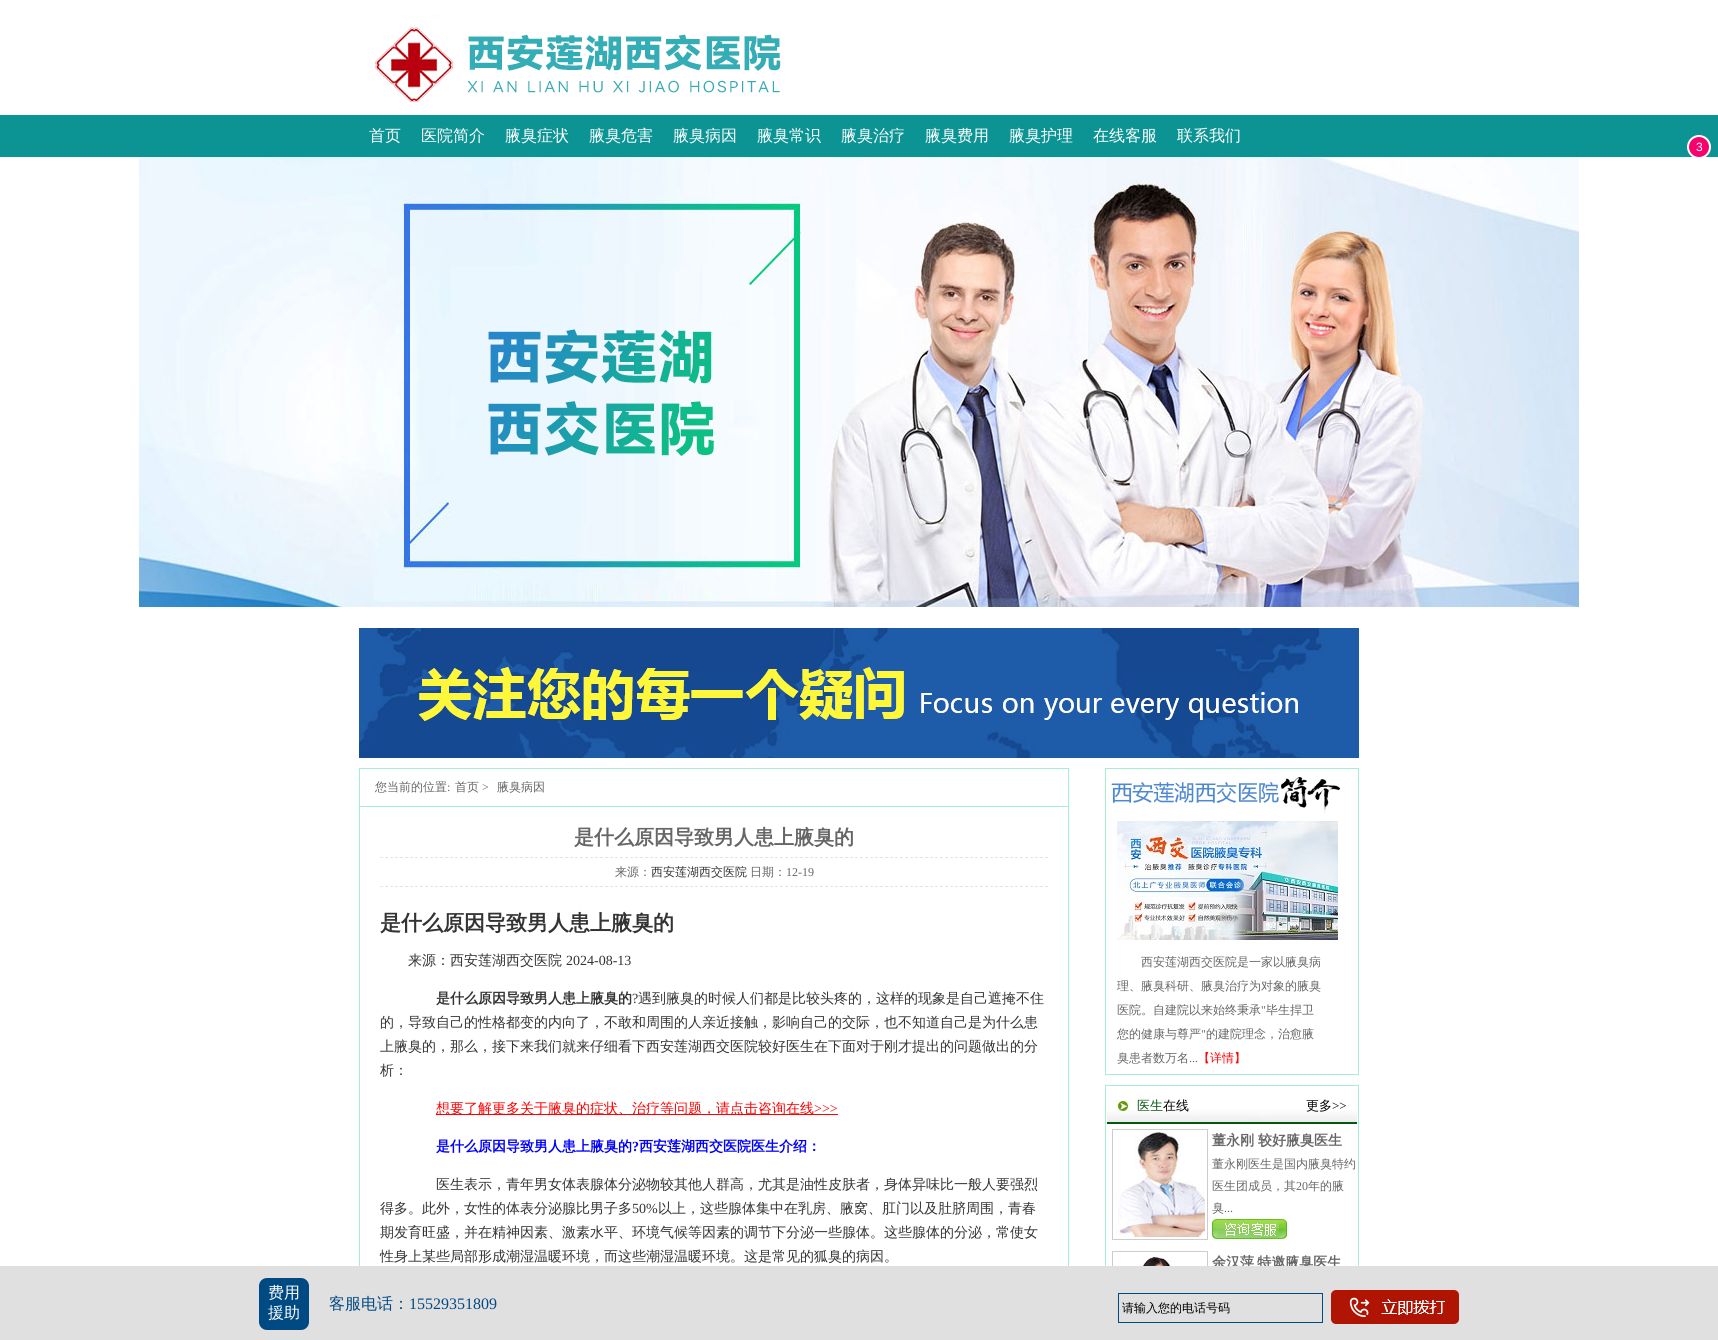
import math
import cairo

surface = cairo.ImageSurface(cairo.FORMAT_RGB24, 1718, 1340)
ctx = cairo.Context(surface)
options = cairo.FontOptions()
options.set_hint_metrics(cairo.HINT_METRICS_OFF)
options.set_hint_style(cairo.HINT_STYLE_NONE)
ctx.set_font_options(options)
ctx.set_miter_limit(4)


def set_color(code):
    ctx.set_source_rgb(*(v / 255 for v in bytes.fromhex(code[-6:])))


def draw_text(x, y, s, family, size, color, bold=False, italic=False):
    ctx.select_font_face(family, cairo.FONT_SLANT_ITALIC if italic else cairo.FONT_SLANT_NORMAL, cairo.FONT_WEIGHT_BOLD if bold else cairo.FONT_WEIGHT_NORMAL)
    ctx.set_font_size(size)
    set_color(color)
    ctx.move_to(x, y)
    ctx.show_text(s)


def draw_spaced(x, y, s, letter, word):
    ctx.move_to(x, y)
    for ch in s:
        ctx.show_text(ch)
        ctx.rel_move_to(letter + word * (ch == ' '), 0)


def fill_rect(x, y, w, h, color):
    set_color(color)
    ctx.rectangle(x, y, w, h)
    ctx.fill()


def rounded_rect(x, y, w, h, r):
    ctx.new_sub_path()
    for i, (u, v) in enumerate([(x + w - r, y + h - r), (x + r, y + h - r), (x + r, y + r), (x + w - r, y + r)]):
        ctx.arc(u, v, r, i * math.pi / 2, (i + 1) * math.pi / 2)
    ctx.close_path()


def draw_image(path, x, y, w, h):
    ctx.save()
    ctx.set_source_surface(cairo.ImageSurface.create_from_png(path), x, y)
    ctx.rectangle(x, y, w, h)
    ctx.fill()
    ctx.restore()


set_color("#ffffff")
ctx.paint()
draw_image("assets/img1.png", 375, 15, 406, 87)
fill_rect(0, 115, 1718, 42, "#0c9494")
draw_text(369, 141, "首页", "WenQuanYi Zen Hei Medium", 16, "#ffffff")
draw_text(421, 141, "医院简介", "WenQuanYi Zen Hei Medium", 16, "#ffffff")
draw_text(505, 141, "腋臭症状", "WenQuanYi Zen Hei Medium", 16, "#ffffff")
draw_text(589, 141, "腋臭危害", "WenQuanYi Zen Hei Medium", 16, "#ffffff")
draw_text(673, 141, "腋臭病因", "WenQuanYi Zen Hei Medium", 16, "#ffffff")
draw_text(757, 141, "腋臭常识", "WenQuanYi Zen Hei Medium", 16, "#ffffff")
draw_text(841, 141, "腋臭治疗", "WenQuanYi Zen Hei Medium", 16, "#ffffff")
draw_text(925, 141, "腋臭费用", "WenQuanYi Zen Hei Medium", 16, "#ffffff")
draw_text(1009, 141, "腋臭护理", "WenQuanYi Zen Hei Medium", 16, "#ffffff")
draw_text(1093, 141, "在线客服", "WenQuanYi Zen Hei Medium", 16, "#ffffff")
draw_text(1177, 141, "联系我们", "WenQuanYi Zen Hei Medium", 16, "#ffffff")
set_color("#f7016f")
ctx.new_path()
ctx.arc(1699, 147, 11, 0, 2 * math.pi)
ctx.fill_preserve()
set_color("#ffffff")
ctx.stroke()
draw_text(1696, 151, "3", "Liberation Sans", 12, "#ffffff")
draw_image("assets/img2.png", 139, 157, 1440, 450)
draw_image("assets/img3.png", 359, 628, 1000, 130)
ctx.rectangle(359.5, 768.5, 709, 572)
set_color("#a4efcf")
ctx.set_line_width(1)
ctx.stroke()
fill_rect(360, 806, 708, 1, "#a4efcf")
draw_text(375, 791, "您当前的位置", "WenQuanYi Zen Hei Medium", 12, "#666666")
draw_text(447, 791, ":", "Liberation Serif", 12, "#666666")
draw_text(455, 791, "首页", "WenQuanYi Zen Hei Medium", 12, "#666666")
draw_text(482, 791, ">", "Liberation Serif", 12, "#666666")
draw_text(497, 791, "腋臭病因", "WenQuanYi Zen Hei Medium", 12, "#666666")
draw_text(574, 844, "是什么原因导致男人患上腋臭的", "WenQuanYi Zen Hei", 20, "#666666", bold=True)
ctx.new_path()
ctx.move_to(380, 857.5)
ctx.line_to(1048, 857.5)
set_color("#e0e8d8")
ctx.set_dash([3, 2])
ctx.stroke()
ctx.new_path()
ctx.move_to(380, 886.5)
ctx.line_to(1048, 886.5)
ctx.stroke()
draw_text(615, 876, "来源：", "WenQuanYi Zen Hei Medium", 12, "#666666")
draw_text(651, 876, "西安莲湖西交医院", "WenQuanYi Zen Hei Medium", 12, "#333333")
draw_text(750, 876, "日期：", "WenQuanYi Zen Hei Medium", 12, "#666666")
draw_text(786, 876, "12-19", "Liberation Serif", 12, "#666666")
draw_text(380, 930, "是什么原因导致男人患上腋臭的", "WenQuanYi Zen Hei", 21, "#333333", bold=True)
draw_text(408, 965, "来源：西安莲湖西交医院", "WenQuanYi Zen Hei Medium", 14, "#333333")
draw_text(566, 965, "2024-08-13", "Liberation Serif", 14, "#333333")
draw_text(436, 1003, "是什么原因导致男人患上腋臭的", "WenQuanYi Zen Hei", 14, "#333333", bold=True)
draw_text(632, 1003, "?", "Liberation Serif", 14, "#333333")
draw_text(638, 1003, "遇到腋臭的时候人们都是比较头疼的，这样的现象是自己遮掩不住", "WenQuanYi Zen Hei Medium", 14, "#333333")
draw_text(380, 1027, "的，导致自己的性格都变的内向了，不敢和周围的人亲近接触，影响自己的交际，也不知道自己是为什么患", "WenQuanYi Zen Hei Medium", 14, "#333333")
draw_text(380, 1051, "上腋臭的，那么，接下来我们就来仔细看下西安莲湖西交医院较好医生在下面对于刚才提出的问题做出的分", "WenQuanYi Zen Hei Medium", 14, "#333333")
draw_text(380, 1075, "析：", "WenQuanYi Zen Hei Medium", 14, "#333333")
fill_rect(436, 1114, 402, 1, "#ff0000")
draw_text(436, 1113, "想要了解更多关于腋臭的症状、治疗等问题，请点击咨询在线", "WenQuanYi Zen Hei Medium", 14, "#ff0000")
draw_text(814, 1113, ">>>", "Liberation Serif", 14, "#ff0000")
draw_text(436, 1151, "是什么原因导致男人患上腋臭的", "WenQuanYi Zen Hei", 14, "#0000ff", bold=True)
draw_text(632, 1151, "?", "Liberation Serif", 14, "#0000ff", bold=True)
draw_text(639, 1151, "西安莲湖西交医院医生介绍：", "WenQuanYi Zen Hei", 14, "#0000ff", bold=True)
draw_text(436, 1189, "医生表示，青年男女体表腺体分泌物较其他人群高，尤其是油性皮肤者，身体异味比一般人要强烈", "WenQuanYi Zen Hei Medium", 14, "#333333")
draw_text(380, 1213, "得多。此外，女性的体表分泌腺比男子多", "WenQuanYi Zen Hei Medium", 14, "#333333")
draw_text(632, 1213, "50%", "Liberation Serif", 14, "#333333")
draw_text(658, 1213, "以上，这些腺体集中在乳房、腋窝、肛门以及肚脐周围，青春", "WenQuanYi Zen Hei Medium", 14, "#333333")
draw_text(380, 1237, "期发育旺盛，并在精神因素、激素水平、环境气候等因素的调节下分泌一些腺体。这些腺体的分泌，常使女", "WenQuanYi Zen Hei Medium", 14, "#333333")
draw_text(380, 1261, "性身上某些局部形成潮湿温暖环境，而这些潮湿温暖环境。这是常见的狐臭的病因。", "WenQuanYi Zen Hei Medium", 14, "#333333")
ctx.rectangle(1105.5, 768.5, 253, 306)
set_color("#a4efcf")
ctx.set_dash([])
ctx.stroke()
draw_image("assets/img4.png", 1111, 777, 230, 36)
draw_image("assets/img5.png", 1117, 821, 221, 119)
draw_text(1141, 966, "西安莲湖西交医院是一家以腋臭病", "WenQuanYi Zen Hei Medium", 12, "#666666")
draw_text(1117, 990, "理、腋臭科研、腋臭治疗为对象的腋臭", "WenQuanYi Zen Hei Medium", 12, "#666666")
draw_text(1117, 1014, "医院。自建院以来始终秉承", "WenQuanYi Zen Hei Medium", 12, "#666666")
draw_text(1261, 1014, "\"", "Liberation Serif", 12, "#666666")
draw_text(1266, 1014, "毕生捍卫", "WenQuanYi Zen Hei Medium", 12, "#666666")
draw_text(1117, 1038, "您的健康与尊严", "WenQuanYi Zen Hei Medium", 12, "#666666")
draw_text(1201, 1038, "\"", "Liberation Serif", 12, "#666666")
draw_text(1206, 1038, "的建院理念，治愈腋", "WenQuanYi Zen Hei Medium", 12, "#666666")
draw_text(1117, 1062, "臭患者数万名", "WenQuanYi Zen Hei Medium", 12, "#666666")
draw_text(1189, 1062, "...", "Liberation Serif", 12, "#666666")
draw_text(1198, 1062, "【详情】", "WenQuanYi Zen Hei Medium", 12, "#ff0000")
ctx.rectangle(1105.5, 1085.5, 253, 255)
set_color("#a4efcf")
ctx.stroke()
draw_image("assets/img6.png", 1107, 1095, 250, 29)
draw_text(1137, 1110, "医生", "WenQuanYi Zen Hei Medium", 13, "#04570f")
draw_text(1163, 1110, "在线", "WenQuanYi Zen Hei Medium", 13, "#000000")
draw_text(1306, 1110, "更多", "WenQuanYi Zen Hei Medium", 13, "#000000")
draw_text(1332, 1110, ">>", "Liberation Serif", 13, "#000000")
ctx.rectangle(1112.5, 1129.5, 95, 110)
set_color("#cccccc")
ctx.stroke()
draw_image("assets/img7.png", 1115, 1132, 90, 105)
draw_text(1212, 1145, "董永刚", "WenQuanYi Zen Hei", 14, "#666666", bold=True)
draw_text(1258, 1145, "较好腋臭医生", "WenQuanYi Zen Hei", 14, "#666666", bold=True)
draw_text(1212, 1168, "董永刚医生是国内腋臭特约", "WenQuanYi Zen Hei Medium", 12, "#666666")
draw_text(1212, 1190, "医生团成员，其", "WenQuanYi Zen Hei Medium", 12, "#666666")
draw_text(1296, 1190, "20", "Liberation Serif", 12, "#666666")
draw_text(1308, 1190, "年的腋", "WenQuanYi Zen Hei Medium", 12, "#666666")
draw_text(1212, 1212, "臭", "WenQuanYi Zen Hei Medium", 12, "#666666")
draw_text(1224, 1212, "...", "Liberation Serif", 12, "#666666")
draw_image("assets/img8.png", 1212, 1219, 75, 20)
ctx.rectangle(1112.5, 1251.5, 95, 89)
set_color("#cccccc")
ctx.stroke()
draw_image("assets/img9.png", 1116, 1255, 86, 11)
ctx.select_font_face("WenQuanYi Zen Hei", cairo.FONT_SLANT_NORMAL, cairo.FONT_WEIGHT_BOLD)
ctx.set_font_size(14)
set_color("#666666")
draw_spaced(1212, 1267, "余汉萍 特邀腋臭医生", 0, -1)
fill_rect(0, 1266, 1718, 74, "#e1e0e1")
set_color("#004a83")
rounded_rect(259, 1278, 50, 52, 8)
ctx.fill()
draw_text(268, 1298, "费用", "WenQuanYi Zen Hei Medium", 16, "#ffffff")
draw_text(268, 1318, "援助", "WenQuanYi Zen Hei Medium", 16, "#ffffff")
draw_text(329, 1309, "客服电话：", "WenQuanYi Zen Hei Medium", 16, "#004a83")
draw_text(409, 1309, "15529351809", "Liberation Serif", 16, "#004a83")
ctx.rectangle(1118.5, 1293.5, 204, 29)
ctx.stroke()
draw_text(1122, 1312, "请输入您的电话号码", "WenQuanYi Zen Hei Medium", 12, "#000000")
draw_image("assets/img10.png", 1331, 1290, 128, 34)
surface.write_to_png("output.png")
